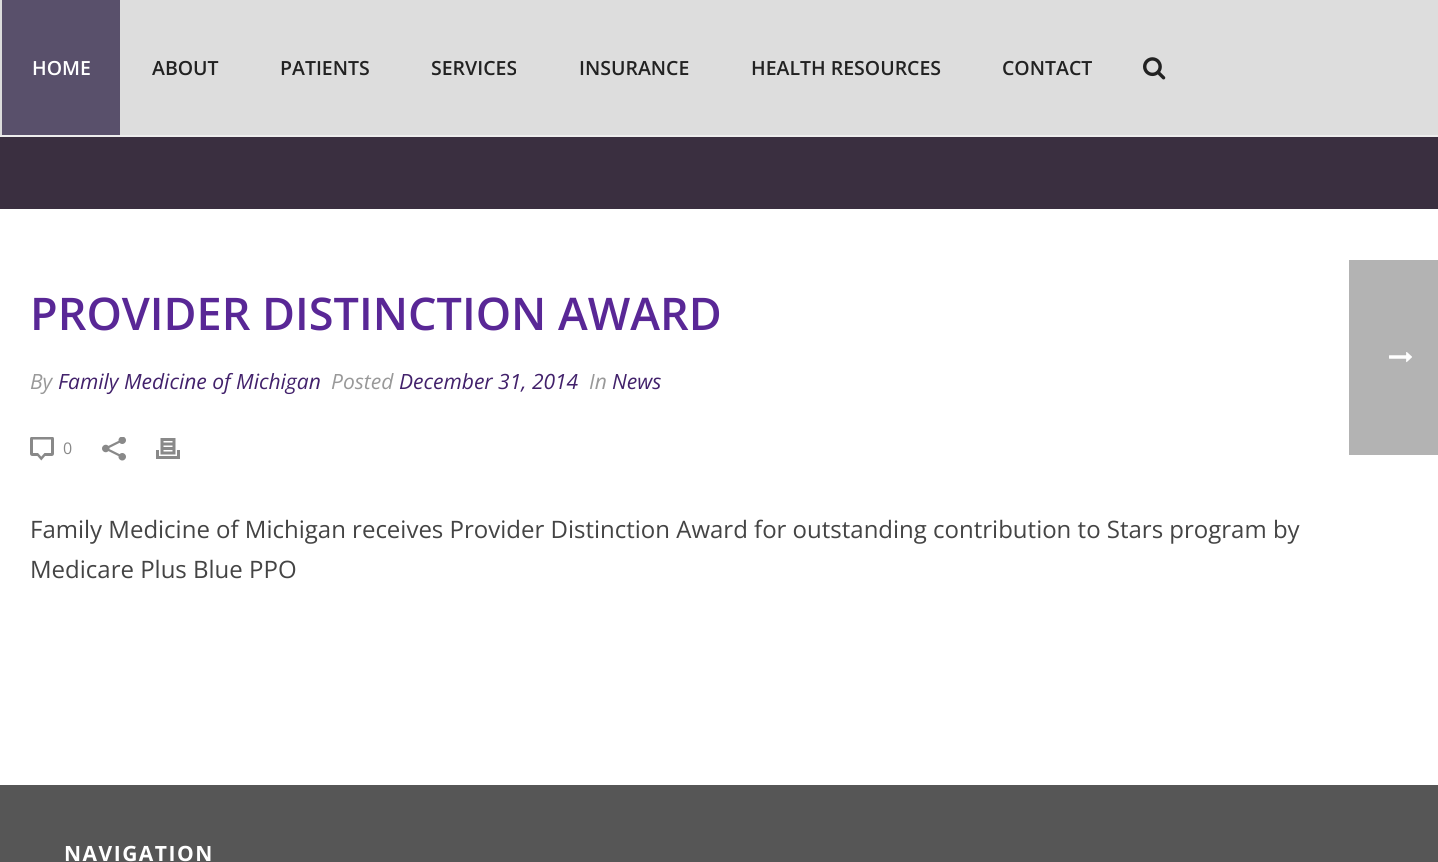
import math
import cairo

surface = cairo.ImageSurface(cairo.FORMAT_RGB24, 1438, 862)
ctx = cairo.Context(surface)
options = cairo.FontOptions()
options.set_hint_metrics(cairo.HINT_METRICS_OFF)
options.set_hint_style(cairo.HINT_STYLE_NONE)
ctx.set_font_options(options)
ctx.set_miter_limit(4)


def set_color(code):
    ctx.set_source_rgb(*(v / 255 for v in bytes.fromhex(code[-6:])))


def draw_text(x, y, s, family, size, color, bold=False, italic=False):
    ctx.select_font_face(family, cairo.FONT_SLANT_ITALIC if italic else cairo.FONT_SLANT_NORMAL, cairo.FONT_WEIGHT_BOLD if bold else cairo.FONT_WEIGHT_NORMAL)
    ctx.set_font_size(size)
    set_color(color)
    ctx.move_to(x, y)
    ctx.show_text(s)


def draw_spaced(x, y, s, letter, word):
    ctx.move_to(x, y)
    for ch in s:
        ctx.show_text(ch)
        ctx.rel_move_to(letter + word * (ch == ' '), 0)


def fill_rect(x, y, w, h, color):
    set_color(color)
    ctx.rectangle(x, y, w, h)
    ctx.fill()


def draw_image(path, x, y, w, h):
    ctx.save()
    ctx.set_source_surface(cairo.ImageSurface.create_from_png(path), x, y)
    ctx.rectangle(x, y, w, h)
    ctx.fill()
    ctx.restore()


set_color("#ffffff")
ctx.paint()
fill_rect(0, 137, 1438, 72, "#3a2f40")
fill_rect(0, 0, 1438, 135, "#dddddd")
fill_rect(0, 135, 1438, 2, "#ededed")
fill_rect(2, 0, 118, 135, "#59506b")
draw_text(32, 75, "HOME", "Open Sans SemiBold", 19.5, "#ffffff")
draw_text(152, 75, "ABOUT", "Open Sans SemiBold", 19.5, "#222222")
draw_text(280, 75, "PATIENTS", "Open Sans SemiBold", 19.5, "#222222")
draw_text(431, 75, "SERVICES", "Open Sans SemiBold", 19.5, "#222222")
draw_text(579, 75, "INSURANCE", "Open Sans SemiBold", 19.5, "#222222")
draw_text(751, 75, "HEALTH RESOURCES", "Open Sans SemiBold", 19.5, "#222222")
draw_text(1002, 75, "CONTACT", "Open Sans SemiBold", 19.5, "#222222")
draw_image("assets/img1.png", 1143, 57, 23, 23)
draw_text(30, 330, "PROVIDER DISTINCTION AWARD", "Open Sans SemiBold", 45, "#592796")
draw_text(30, 389, "By", "Open Sans", 21, "#999999", italic=True)
draw_text(58, 389, "Family Medicine of Michigan", "Open Sans", 21, "#42216b", italic=True)
draw_text(331, 389, "Posted", "Open Sans", 21, "#999999", italic=True)
draw_text(399, 389, "December 31, 2014", "Open Sans", 21, "#42216b", italic=True)
draw_text(589, 389, "In", "Open Sans", 21, "#999999", italic=True)
draw_text(612, 389, "News", "Open Sans", 21, "#42216b", italic=True)
draw_image("assets/img2.png", 30, 437, 24, 24)
draw_text(63, 454, "0", "Open Sans", 16, "#898989")
draw_image("assets/img3.png", 102, 437, 24, 24)
draw_image("assets/img4.png", 156, 438, 24, 21)
draw_text(30, 538, "Family Medicine of Michigan receives Provider Distinction Award for outstanding contribution to Stars program by", "Open Sans", 24, "#444444")
draw_text(30, 578, "Medicare Plus Blue PPO", "Open Sans", 24, "#444444")
fill_rect(0, 785, 1438, 77, "#565656")
ctx.select_font_face("Open Sans", cairo.FONT_SLANT_NORMAL, cairo.FONT_WEIGHT_BOLD)
ctx.set_font_size(21)
set_color("#ffffff")
draw_spaced(64, 861, "NAVIGATION", 1.5, 0)
fill_rect(1349, 260, 89, 195, "#b3b3b3")
draw_image("assets/img5.png", 1389, 352, 23, 11)
surface.write_to_png("output.png")
